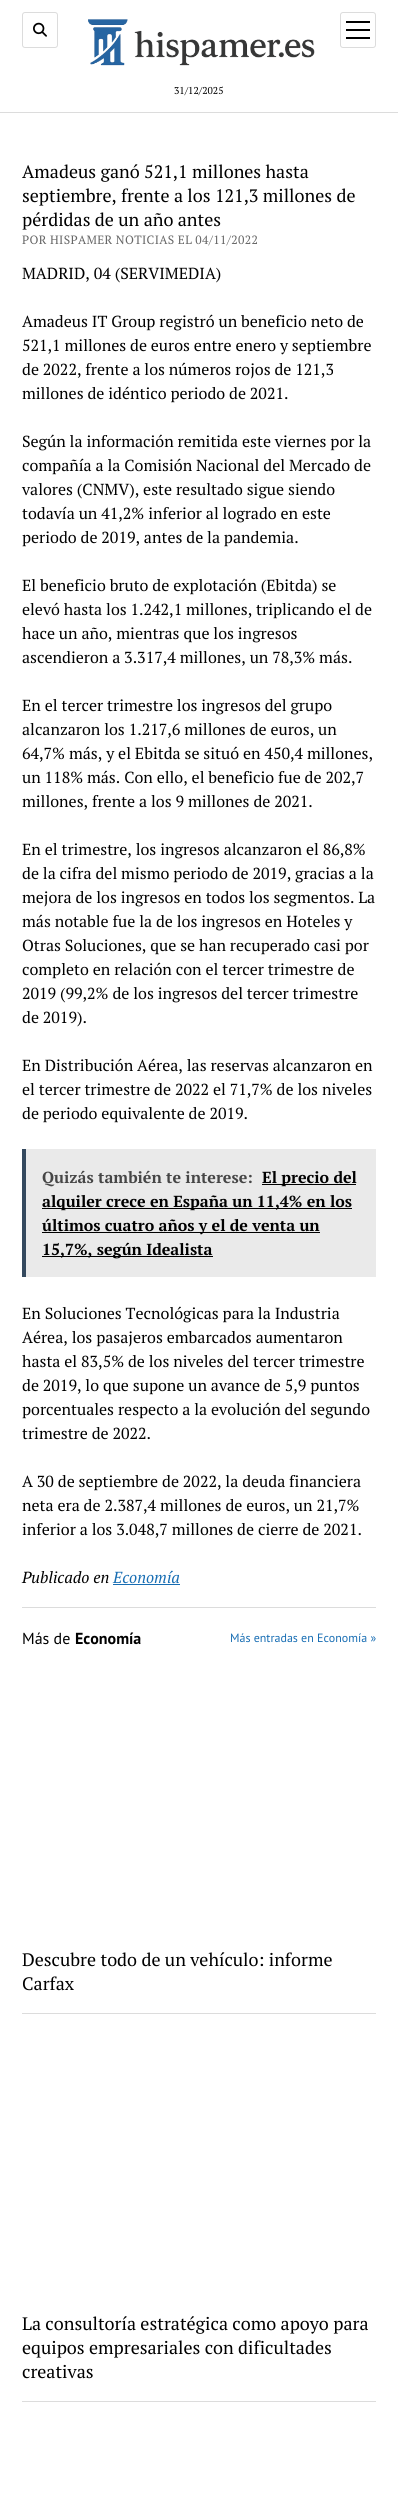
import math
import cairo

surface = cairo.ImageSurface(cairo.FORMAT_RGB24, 398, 2508)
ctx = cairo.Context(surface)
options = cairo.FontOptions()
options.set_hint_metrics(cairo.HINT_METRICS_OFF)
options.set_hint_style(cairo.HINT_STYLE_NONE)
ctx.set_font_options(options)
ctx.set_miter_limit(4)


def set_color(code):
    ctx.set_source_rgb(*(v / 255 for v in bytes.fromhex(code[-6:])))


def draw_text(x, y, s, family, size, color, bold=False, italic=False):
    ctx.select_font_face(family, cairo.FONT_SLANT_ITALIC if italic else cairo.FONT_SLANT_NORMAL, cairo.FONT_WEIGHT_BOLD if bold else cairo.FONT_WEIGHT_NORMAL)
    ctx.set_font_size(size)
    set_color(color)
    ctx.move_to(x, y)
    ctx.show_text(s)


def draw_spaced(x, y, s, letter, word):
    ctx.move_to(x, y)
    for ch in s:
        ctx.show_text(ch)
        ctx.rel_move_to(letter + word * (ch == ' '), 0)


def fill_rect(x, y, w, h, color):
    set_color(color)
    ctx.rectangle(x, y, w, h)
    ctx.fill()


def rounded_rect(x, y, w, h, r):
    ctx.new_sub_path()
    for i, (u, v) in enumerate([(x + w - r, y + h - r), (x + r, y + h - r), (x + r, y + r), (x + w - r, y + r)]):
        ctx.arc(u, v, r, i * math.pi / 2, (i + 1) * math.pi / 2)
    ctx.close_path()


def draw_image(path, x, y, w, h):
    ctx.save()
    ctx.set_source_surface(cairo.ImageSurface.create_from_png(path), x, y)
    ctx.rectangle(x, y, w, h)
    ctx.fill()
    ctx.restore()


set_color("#ffffff")
ctx.paint()
fill_rect(0, 112, 398, 1, "#dcdcdc")
rounded_rect(22.5, 12.5, 35, 35, 2.5)
ctx.set_line_width(1)
ctx.stroke()
draw_image("assets/img1.png", 33, 22, 14, 15)
rounded_rect(340.5, 12.5, 35, 35, 2.5)
ctx.stroke()
fill_rect(346, 21, 24, 2, "#000000")
fill_rect(346, 29, 24, 2, "#000000")
fill_rect(346, 37, 24, 2, "#000000")
draw_image("assets/img2.png", 88, 19, 227, 47)
draw_text(174, 94, "31/12/2025", "PT Serif", 10, "#000000")
draw_text(22, 178, "Amadeus ganó 521,1 millones hasta", "PT Serif", 18, "#000000")
draw_text(22, 202, "septiembre, frente a los 121,3 millones de", "PT Serif", 18, "#000000")
draw_text(22, 226, "pérdidas de un año antes", "PT Serif", 18, "#000000")
ctx.set_font_size(12)
set_color("#666666")
draw_spaced(22, 244, "POR HISPAMER NOTICIAS EL 04/11/2022", 0.35, 0)
draw_text(22, 279, "MADRID, 04 (SERVIMEDIA)", "PT Serif", 16, "#000000")
draw_text(22, 327, "Amadeus IT Group registró un beneficio neto de", "PT Serif", 16, "#000000")
draw_text(22, 351, "521,1 millones de euros entre enero y septiembre", "PT Serif", 16, "#000000")
draw_text(22, 375, "de 2022, frente a los números rojos de 121,3", "PT Serif", 16, "#000000")
draw_text(22, 399, "millones de idéntico periodo de 2021.", "PT Serif", 16, "#000000")
draw_text(22, 447, "Según la información remitida este viernes por la", "PT Serif", 16, "#000000")
draw_text(22, 471, "compañía a la Comisión Nacional del Mercado de", "PT Serif", 16, "#000000")
draw_text(22, 495, "valores (CNMV), este resultado sigue siendo", "PT Serif", 16, "#000000")
draw_text(22, 519, "todavía un 41,2% inferior al logrado en este", "PT Serif", 16, "#000000")
draw_text(22, 543, "periodo de 2019, antes de la pandemia.", "PT Serif", 16, "#000000")
draw_text(22, 591, "El beneficio bruto de explotación (Ebitda) se", "PT Serif", 16, "#000000")
draw_text(22, 615, "elevó hasta los 1.242,1 millones, triplicando el de", "PT Serif", 16, "#000000")
draw_text(22, 639, "hace un año, mientras que los ingresos", "PT Serif", 16, "#000000")
draw_text(22, 663, "ascendieron a 3.317,4 millones, un 78,3% más.", "PT Serif", 16, "#000000")
draw_text(22, 711, "En el tercer trimestre los ingresos del grupo", "PT Serif", 16, "#000000")
draw_text(22, 735, "alcanzaron los 1.217,6 millones de euros, un", "PT Serif", 16, "#000000")
draw_text(22, 759, "64,7% más, y el Ebitda se situó en 450,4 millones,", "PT Serif", 16, "#000000")
draw_text(22, 783, "un 118% más. Con ello, el beneficio fue de 202,7", "PT Serif", 16, "#000000")
draw_text(22, 807, "millones, frente a los 9 millones de 2021.", "PT Serif", 16, "#000000")
draw_text(22, 855, "En el trimestre, los ingresos alcanzaron el 86,8%", "PT Serif", 16, "#000000")
draw_text(22, 879, "de la cifra del mismo periodo de 2019, gracias a la", "PT Serif", 16, "#000000")
draw_text(22, 903, "mejora de los ingresos en todos los segmentos. La", "PT Serif", 16, "#000000")
draw_text(22, 927, "más notable fue la de los ingresos en Hoteles y", "PT Serif", 16, "#000000")
draw_text(22, 951, "Otras Soluciones, que se han recuperado casi por", "PT Serif", 16, "#000000")
draw_text(22, 975, "completo en relación con el tercer trimestre de", "PT Serif", 16, "#000000")
draw_text(22, 999, "2019 (99,2% de los ingresos del tercer trimestre", "PT Serif", 16, "#000000")
draw_text(22, 1023, "de 2019).", "PT Serif", 16, "#000000")
draw_text(22, 1071, "En Distribución Aérea, las reservas alcanzaron en", "PT Serif", 16, "#000000")
draw_text(22, 1095, "el tercer trimestre de 2022 el 71,7% de los niveles", "PT Serif", 16, "#000000")
draw_text(22, 1119, "de periodo equivalente de 2019.", "PT Serif", 16, "#000000")
fill_rect(26, 1149, 350, 128, "#eaeaea")
fill_rect(22, 1149, 4, 128, "#34495e")
draw_text(42, 1183, "Quizás también te interese:", "PT Serif", 16, "#464646", bold=True)
fill_rect(262, 1184, 94, 1, "#000000")
draw_text(262, 1183, "El precio del", "PT Serif", 16, "#000000", bold=True)
fill_rect(42, 1208, 310, 1, "#000000")
draw_text(42, 1207, "alquiler crece en España un 11,4% en los", "PT Serif", 16, "#000000", bold=True)
fill_rect(42, 1232, 278, 1, "#000000")
draw_text(42, 1231, "últimos cuatro años y el de venta un", "PT Serif", 16, "#000000", bold=True)
fill_rect(42, 1256, 171, 1, "#000000")
draw_text(42, 1255, "15,7%, según Idealista", "PT Serif", 16, "#000000", bold=True)
draw_text(22, 1319, "En Soluciones Tecnológicas para la Industria", "PT Serif", 16, "#000000")
draw_text(22, 1343, "Aérea, los pasajeros embarcados aumentaron", "PT Serif", 16, "#000000")
draw_text(22, 1367, "hasta el 83,5% de los niveles del tercer trimestre", "PT Serif", 16, "#000000")
draw_text(22, 1391, "de 2019, lo que supone un avance de 5,9 puntos", "PT Serif", 16, "#000000")
draw_text(22, 1415, "porcentuales respecto a la evolución del segundo", "PT Serif", 16, "#000000")
draw_text(22, 1439, "trimestre de 2022.", "PT Serif", 16, "#000000")
draw_text(22, 1487, "A 30 de septiembre de 2022, la deuda financiera", "PT Serif", 16, "#000000")
draw_text(22, 1511, "neta era de 2.387,4 millones de euros, un 21,7%", "PT Serif", 16, "#000000")
draw_text(22, 1535, "inferior a los 3.048,7 millones de cierre de 2021.", "PT Serif", 16, "#000000")
fill_rect(22, 1607, 354, 1, "#dcdcdc")
draw_text(22, 1583, "Publicado en", "PT Serif", 16, "#000000", italic=True)
draw_text(113, 1583, "Economía", "PT Serif", 16, "#176db3", italic=True)
fill_rect(113, 1584, 67, 1, "#176db3")
draw_text(22, 1644, "Más de", "PT Sans", 16, "#000000")
draw_text(75, 1644, "Economía", "PT Sans", 16, "#000000", bold=True)
draw_text(230, 1642, "Más entradas en Economía »", "PT Sans", 12, "#176db3")
fill_rect(22, 2013, 354, 1, "#dcdcdc")
draw_text(22, 1966, "Descubre todo de un vehículo: informe", "PT Serif", 18, "#000000")
draw_text(22, 1990, "Carfax", "PT Serif", 18, "#000000")
fill_rect(22, 2401, 354, 1, "#dcdcdc")
draw_text(22, 2330, "La consultoría estratégica como apoyo para", "PT Serif", 18, "#000000")
draw_text(22, 2354, "equipos empresariales con dificultades", "PT Serif", 18, "#000000")
draw_text(22, 2378, "creativas", "PT Serif", 18, "#000000")
surface.write_to_png("output.png")
